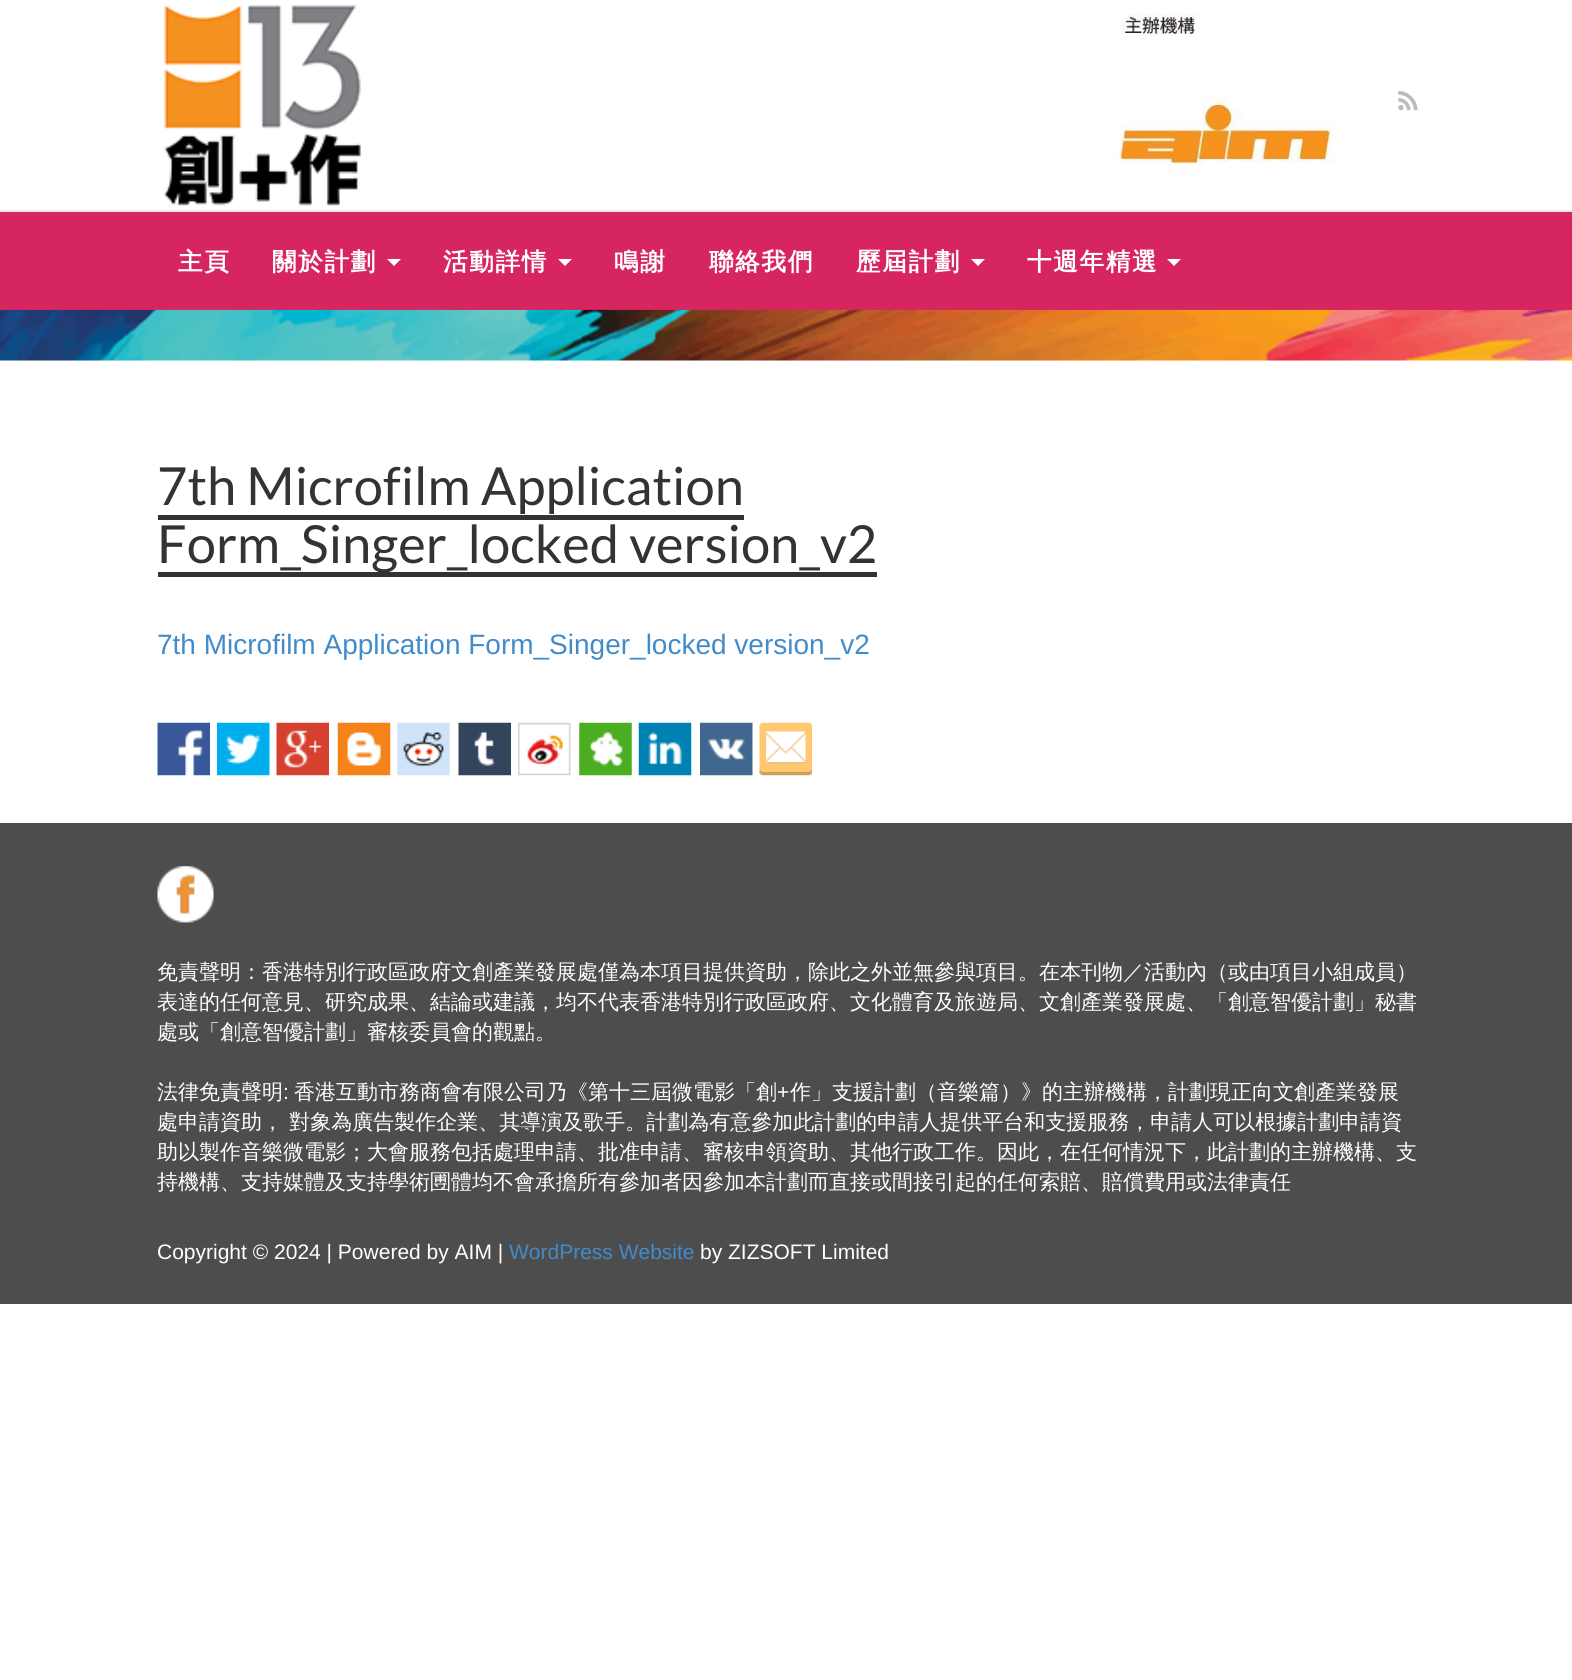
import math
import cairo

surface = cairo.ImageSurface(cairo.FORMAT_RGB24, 1572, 1680)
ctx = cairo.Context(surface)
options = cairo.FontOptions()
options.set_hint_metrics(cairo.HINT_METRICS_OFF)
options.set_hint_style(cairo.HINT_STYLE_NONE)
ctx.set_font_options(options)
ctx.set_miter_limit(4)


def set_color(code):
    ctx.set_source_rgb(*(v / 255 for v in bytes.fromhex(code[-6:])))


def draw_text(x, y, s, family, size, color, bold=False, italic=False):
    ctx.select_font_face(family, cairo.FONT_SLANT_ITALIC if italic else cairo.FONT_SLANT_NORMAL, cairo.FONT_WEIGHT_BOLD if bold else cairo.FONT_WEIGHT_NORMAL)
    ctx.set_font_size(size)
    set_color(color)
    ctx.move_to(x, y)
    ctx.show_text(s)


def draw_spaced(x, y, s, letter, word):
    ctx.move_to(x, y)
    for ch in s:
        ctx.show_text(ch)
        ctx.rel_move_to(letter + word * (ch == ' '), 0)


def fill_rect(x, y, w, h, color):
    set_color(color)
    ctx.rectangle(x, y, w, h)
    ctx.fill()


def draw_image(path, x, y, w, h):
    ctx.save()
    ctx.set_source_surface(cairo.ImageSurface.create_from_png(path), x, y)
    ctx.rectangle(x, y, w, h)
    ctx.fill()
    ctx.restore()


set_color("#ffffff")
ctx.paint()
fill_rect(0, 210, 1572, 2, "#e5e5e5")
draw_image("assets/img1.png", 164, 5, 197, 201)
draw_image("assets/img2.png", 1109, 13, 229, 163)
draw_image("assets/img3.png", 1398, 91, 20, 20)
fill_rect(0, 212, 1572, 98, "#d6255f")
ctx.select_font_face("WenQuanYi Zen Hei", cairo.FONT_SLANT_NORMAL, cairo.FONT_WEIGHT_BOLD)
ctx.set_font_size(24.5)
set_color("#ffffff")
draw_spaced(178, 270, "主頁", 1.75, 0)
draw_spaced(272, 270, "關於計劃", 1.75, 0)
ctx.new_path()
ctx.move_to(387, 259)
ctx.line_to(401, 259)
ctx.line_to(394, 266)
ctx.close_path()
ctx.fill()
draw_spaced(443, 270, "活動詳情", 1.75, 0)
ctx.new_path()
ctx.move_to(558, 259)
ctx.line_to(572, 259)
ctx.line_to(565, 266)
ctx.close_path()
ctx.fill()
draw_spaced(614, 270, "鳴謝", 1.75, 0)
draw_spaced(709, 270, "聯絡我們", 1.75, 0)
draw_spaced(856, 270, "歷屆計劃", 1.75, 0)
ctx.new_path()
ctx.move_to(971, 259)
ctx.line_to(985, 259)
ctx.line_to(978, 266)
ctx.close_path()
ctx.fill()
draw_spaced(1027, 270, "十週年精選", 1.75, 0)
ctx.new_path()
ctx.move_to(1167, 259)
ctx.line_to(1181, 259)
ctx.line_to(1174, 266)
ctx.close_path()
ctx.fill()
draw_image("assets/img4.png", 0, 309, 1572, 52)
draw_text(157, 505, "7th Microfilm Application", "Lato", 52.5, "#333333")
fill_rect(158, 515, 586, 5, "#333333")
fill_rect(158, 572, 719, 5, "#333333")
draw_text(157, 563, "Form_Singer_locked version_v2", "Lato", 52.5, "#333333")
draw_text(157, 654, "7th Microfilm Application Form_Singer_locked version_v2", "Liberation Sans", 28, "#428bca")
draw_image("assets/img5.png", 157, 722, 53, 54)
draw_image("assets/img6.png", 217, 722, 53, 54)
draw_image("assets/img7.png", 276, 722, 53, 54)
draw_image("assets/img8.png", 337, 722, 54, 54)
draw_image("assets/img9.png", 397, 722, 53, 54)
draw_image("assets/img10.png", 458, 722, 53, 54)
draw_image("assets/img11.png", 518, 722, 53, 54)
draw_image("assets/img12.png", 579, 722, 53, 54)
draw_image("assets/img13.png", 638, 722, 54, 54)
draw_image("assets/img14.png", 700, 722, 53, 54)
draw_image("assets/img15.png", 759, 722, 53, 54)
fill_rect(0, 823, 1572, 481, "#4d4d4d")
draw_image("assets/img16.png", 157, 866, 57, 57)
draw_text(157, 979, "免責聲明：香港特別行政區政府文創產業發展處僅為本項目提供資助，除此之外並無參與項目。在本刊物／活動內（或由項目小組成員）", "WenQuanYi Zen Hei Medium", 21, "#ffffff")
draw_text(157, 1009, "表達的任何意見、研究成果、結論或建議，均不代表香港特別行政區政府、文化體育及旅遊局、文創產業發展處、「創意智優計劃」秘書", "WenQuanYi Zen Hei Medium", 21, "#ffffff")
draw_text(157, 1039, "處或「創意智優計劃」審核委員會的觀點。", "WenQuanYi Zen Hei Medium", 21, "#ffffff")
draw_text(157, 1099, "法律免責聲明", "WenQuanYi Zen Hei Medium", 21, "#ffffff")
draw_text(283, 1099, ":", "Liberation Sans", 21, "#ffffff")
draw_text(294, 1099, "香港互動市務商會有限公司乃《第十三屆微電影「創", "WenQuanYi Zen Hei Medium", 21, "#ffffff")
draw_text(777, 1099, "+", "Liberation Sans", 21, "#ffffff")
draw_text(790, 1099, "作」支援計劃（音樂篇）》的主辦機構，計劃現正向文創產業發展", "WenQuanYi Zen Hei Medium", 21, "#ffffff")
draw_text(157, 1129, "處申請資助， 對象為廣告製作企業、其導演及歌手。計劃為有意參加此計劃的申請人提供平台和支援服務，申請人可以根據計劃申請資", "WenQuanYi Zen Hei Medium", 21, "#ffffff")
draw_text(157, 1159, "助以製作音樂微電影；大會服務包括處理申請、批准申請、審核申領資助、其他行政工作。因此，在任何情況下，此計劃的主辦機構、支", "WenQuanYi Zen Hei Medium", 21, "#ffffff")
draw_text(157, 1189, "持機構、支持媒體及支持學術圑體均不會承擔所有參加者因參加本計劃而直接或間接引起的任何索賠、賠償費用或法律責任", "WenQuanYi Zen Hei Medium", 21, "#ffffff")
draw_text(157, 1259, "Copyright © 2024 | Powered by AIM |", "Liberation Sans", 21, "#ffffff")
draw_text(509, 1259, "WordPress Website", "Liberation Sans", 21, "#428bca")
draw_text(700, 1259, "by ZIZSOFT Limited", "Liberation Sans", 21, "#ffffff")
surface.write_to_png("output.png")
